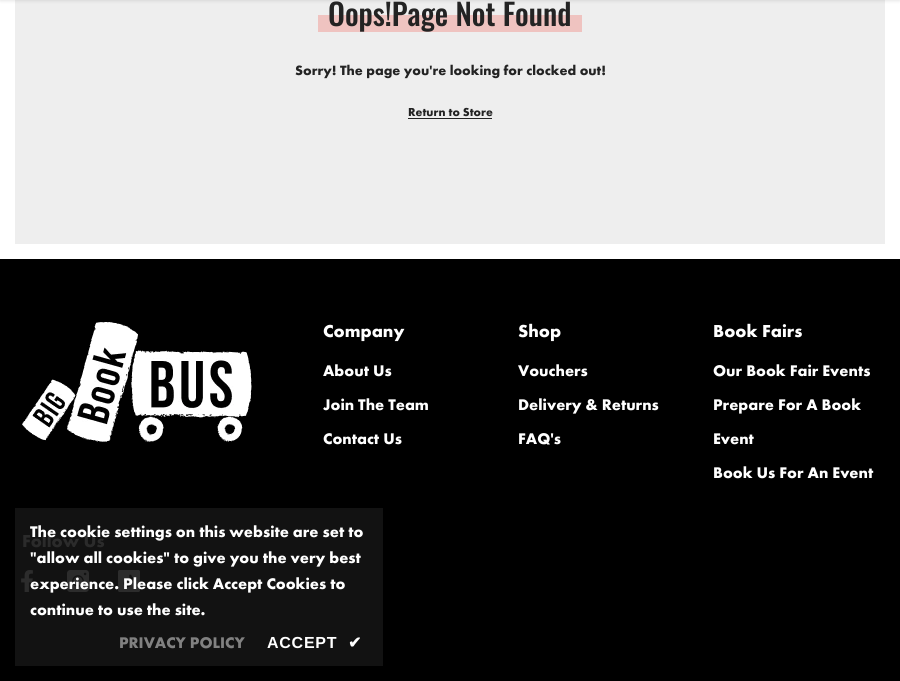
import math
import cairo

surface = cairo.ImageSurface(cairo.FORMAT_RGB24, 900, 681)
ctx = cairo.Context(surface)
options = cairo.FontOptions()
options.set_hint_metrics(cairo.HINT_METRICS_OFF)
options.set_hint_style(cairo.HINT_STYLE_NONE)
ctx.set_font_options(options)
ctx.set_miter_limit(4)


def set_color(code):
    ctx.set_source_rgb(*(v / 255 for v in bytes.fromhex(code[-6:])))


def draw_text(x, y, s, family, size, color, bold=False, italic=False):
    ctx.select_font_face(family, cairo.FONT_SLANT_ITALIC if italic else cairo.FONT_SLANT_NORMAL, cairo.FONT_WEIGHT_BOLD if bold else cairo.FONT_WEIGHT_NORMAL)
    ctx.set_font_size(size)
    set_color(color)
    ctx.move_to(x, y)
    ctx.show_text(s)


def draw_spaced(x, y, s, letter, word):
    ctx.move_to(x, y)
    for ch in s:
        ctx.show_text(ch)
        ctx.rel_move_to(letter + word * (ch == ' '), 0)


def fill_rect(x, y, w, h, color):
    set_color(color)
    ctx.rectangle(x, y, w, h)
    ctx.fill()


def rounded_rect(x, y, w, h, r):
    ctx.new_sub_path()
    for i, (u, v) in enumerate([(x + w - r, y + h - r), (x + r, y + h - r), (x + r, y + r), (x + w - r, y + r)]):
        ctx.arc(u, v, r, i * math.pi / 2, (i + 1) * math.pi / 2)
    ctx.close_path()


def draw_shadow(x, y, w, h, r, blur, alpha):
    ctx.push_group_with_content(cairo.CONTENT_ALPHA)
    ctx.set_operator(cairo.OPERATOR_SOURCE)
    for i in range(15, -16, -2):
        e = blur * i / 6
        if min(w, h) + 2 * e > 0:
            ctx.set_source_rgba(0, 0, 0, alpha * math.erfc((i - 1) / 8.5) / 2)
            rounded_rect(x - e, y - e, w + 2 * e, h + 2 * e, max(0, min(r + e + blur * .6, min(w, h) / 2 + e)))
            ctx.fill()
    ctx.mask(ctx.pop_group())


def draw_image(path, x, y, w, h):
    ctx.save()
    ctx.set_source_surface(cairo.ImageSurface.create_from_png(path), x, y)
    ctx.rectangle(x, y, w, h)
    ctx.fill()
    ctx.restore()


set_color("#ffffff")
ctx.paint()
fill_rect(15, 0, 870, 244, "#eeeeee")
set_color("#000000")
draw_shadow(0, -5, 900, 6, 0, 1.5, 0.1)
fill_rect(318, 15, 264, 17, "#efc3c0")
draw_text(328, 26, "Oops!Page Not Found", "Oswald Medium", 30, "#232323")
draw_text(295, 75, "Sorry! The page you're looking for clocked out!", "Futura", 14, "#232323", bold=True)
draw_text(408, 116, "Return to Store", "Futura", 12, "#232323", bold=True)
fill_rect(408, 118, 84, 1, "#232323")
fill_rect(0, 259, 900, 422, "#000000")
fill_rect(15, 508, 368, 158, "#121212")
draw_image("assets/img1.png", 22, 322, 230, 120)
draw_text(323, 337, "Company", "Futura", 18, "#ffffff", bold=True)
draw_text(323, 376, "About Us", "Futura", 16, "#ffffff", bold=True)
draw_text(323, 410, "Join The Team", "Futura", 16, "#ffffff", bold=True)
draw_text(323, 444, "Contact Us", "Futura", 16, "#ffffff", bold=True)
draw_text(518, 337, "Shop", "Futura", 18, "#ffffff", bold=True)
draw_text(518, 376, "Vouchers", "Futura", 16, "#ffffff", bold=True)
draw_text(518, 410, "Delivery & Returns", "Futura", 16, "#ffffff", bold=True)
draw_text(518, 444, "FAQ's", "Futura", 16, "#ffffff", bold=True)
draw_text(713, 337, "Book Fairs", "Futura", 18, "#ffffff", bold=True)
draw_text(713, 376, "Our Book Fair Events", "Futura", 16, "#ffffff", bold=True)
draw_text(713, 410, "Prepare For A Book", "Futura", 16, "#ffffff", bold=True)
draw_text(713, 444, "Event", "Futura", 16, "#ffffff", bold=True)
draw_text(713, 478, "Book Us For An Event", "Futura", 16, "#ffffff", bold=True)
draw_text(22, 547, "Follow Us", "Futura", 18, "#2b2b2b", bold=True)
draw_image("assets/img2.png", 21, 570, 12, 22)
draw_image("assets/img3.png", 67, 570, 22, 22)
draw_image("assets/img4.png", 118, 570, 22, 22)
draw_text(30, 537, "The cookie settings on this website are set to", "Futura", 16, "#ffffff", bold=True)
draw_text(30, 563, "\"allow all cookies\" to give you the very best", "Futura", 16, "#ffffff", bold=True)
draw_text(30, 589, "experience. Please click Accept Cookies to", "Futura", 16, "#ffffff", bold=True)
draw_text(30, 615, "continue to use the site.", "Futura", 16, "#ffffff", bold=True)
draw_text(119, 648, "PRIVACY POLICY", "Futura", 16, "#818181", bold=True)
ctx.select_font_face("Liberation Sans", cairo.FONT_SLANT_NORMAL, cairo.FONT_WEIGHT_BOLD)
set_color("#ffffff")
draw_spaced(267, 648, "ACCEPT", 0.75, 0)
ctx.select_font_face("DejaVu Sans", cairo.FONT_SLANT_NORMAL, cairo.FONT_WEIGHT_BOLD)
draw_spaced(348, 648, "✔", 0.75, 0)
surface.write_to_png("output.png")
